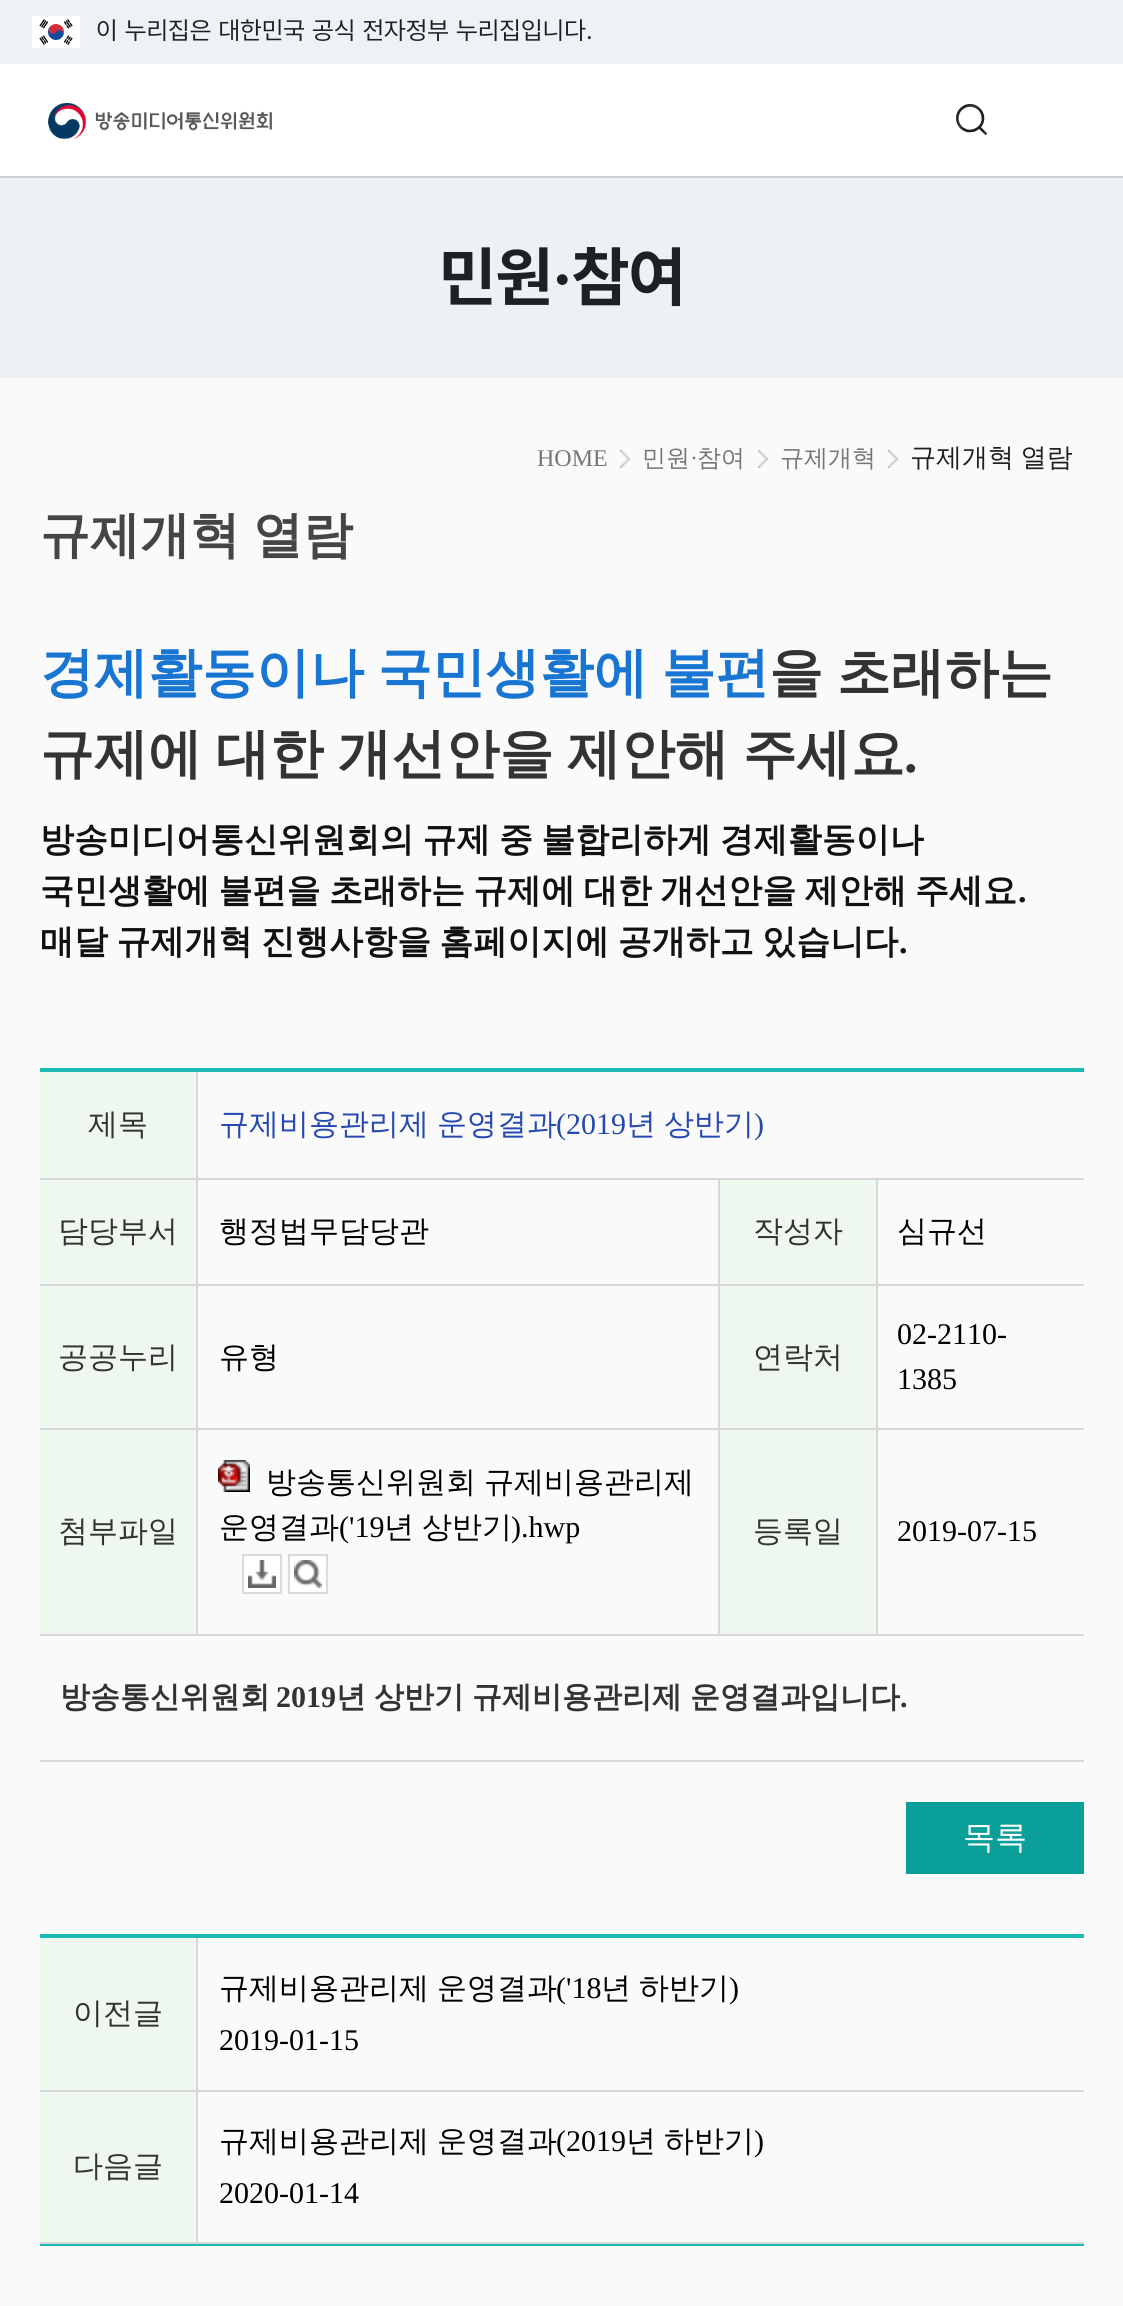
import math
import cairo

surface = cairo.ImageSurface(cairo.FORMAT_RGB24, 1123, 2306)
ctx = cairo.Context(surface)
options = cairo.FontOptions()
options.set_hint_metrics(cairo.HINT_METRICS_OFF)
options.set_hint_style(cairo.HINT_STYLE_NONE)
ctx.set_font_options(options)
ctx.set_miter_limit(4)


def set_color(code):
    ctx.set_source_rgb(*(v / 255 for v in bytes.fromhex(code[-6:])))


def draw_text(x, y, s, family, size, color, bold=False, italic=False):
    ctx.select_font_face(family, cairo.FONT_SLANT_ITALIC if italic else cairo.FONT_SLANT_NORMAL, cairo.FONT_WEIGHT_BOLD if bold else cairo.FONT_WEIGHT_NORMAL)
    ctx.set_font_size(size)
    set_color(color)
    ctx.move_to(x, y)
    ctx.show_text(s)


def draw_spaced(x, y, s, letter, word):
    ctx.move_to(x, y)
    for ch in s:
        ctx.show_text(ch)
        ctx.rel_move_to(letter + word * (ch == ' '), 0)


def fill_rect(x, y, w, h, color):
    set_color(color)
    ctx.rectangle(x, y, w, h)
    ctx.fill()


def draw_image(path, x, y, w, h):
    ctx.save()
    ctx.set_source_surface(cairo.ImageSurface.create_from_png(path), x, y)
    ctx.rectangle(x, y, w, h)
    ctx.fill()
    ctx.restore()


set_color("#ffffff")
ctx.paint()
fill_rect(0, 0, 1123, 64, "#eef2f7")
draw_image("assets/img1.png", 32, 16, 48, 32)
draw_text(96, 39, "이 누리집은 대한민국 공식 전자정부 누리집입니다.", "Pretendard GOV", 25, "#1e2124")
fill_rect(0, 176, 1123, 2, "#cdd1d5")
draw_image("assets/img2.png", 48, 103, 224, 37)
draw_image("assets/img3.png", 956, 104, 31, 31)
fill_rect(0, 178, 1123, 200, "#edf1f5")
draw_text(439, 300, "민원·참여", "Pretendard GOV", 66, "#1e2124", bold=True)
fill_rect(0, 378, 1123, 1928, "#fafafa")
draw_text(537, 466, "HOME", "Liberation Serif", 24, "#777777")
draw_image("assets/img4.png", 620, 450, 10, 18)
draw_text(642, 466, "민원", "WenQuanYi Zen Hei Medium", 24, "#777777")
draw_text(690, 466, "·", "Liberation Serif", 24, "#777777")
draw_text(697, 466, "참여", "WenQuanYi Zen Hei Medium", 24, "#777777")
draw_image("assets/img4.png", 758, 450, 10, 18)
draw_text(780, 466, "규제개혁", "WenQuanYi Zen Hei Medium", 24, "#777777")
draw_image("assets/img4.png", 888, 450, 10, 18)
ctx.set_font_size(26)
set_color("#1e2124")
draw_spaced(910, 466, "규제개혁 열람", 0, -1)
ctx.select_font_face("WenQuanYi Zen Hei", cairo.FONT_SLANT_NORMAL, cairo.FONT_WEIGHT_BOLD)
ctx.set_font_size(50)
set_color("#454545")
draw_spaced(40, 552, "규제개혁 열람", 0, -2)
ctx.set_font_size(54)
set_color("#1875d2")
draw_spaced(40, 691, "경제활동이나 국민생활에 불편", 0, -2.5)
set_color("#333333")
draw_spaced(769, 691, "을 초래하는", 0, -2.5)
draw_spaced(40, 772, "규제에 대한 개선안을 제안해 주세요", 0, -2.5)
draw_text(904, 772, ".", "Liberation Serif", 54, "#333333", bold=True)
ctx.select_font_face("WenQuanYi Zen Hei", cairo.FONT_SLANT_NORMAL, cairo.FONT_WEIGHT_BOLD)
ctx.set_font_size(34)
set_color("#111111")
draw_spaced(40, 851, "방송미디어통신위원회의 규제 중 불합리하게 경제활동이나", 0, -1.75)
draw_spaced(40, 902, "국민생활에 불편을 초래하는 규제에 대한 개선안을 제안해 주세요", 0, -1.75)
draw_text(1018, 902, ".", "Liberation Serif", 34, "#111111", bold=True)
ctx.select_font_face("WenQuanYi Zen Hei", cairo.FONT_SLANT_NORMAL, cairo.FONT_WEIGHT_BOLD)
draw_spaced(40, 953, "매달 규제개혁 진행사항을 홈페이지에 공개하고 있습니다", 0, -1.75)
draw_text(899, 953, ".", "Liberation Serif", 34, "#111111", bold=True)
fill_rect(40, 1068, 1044, 4, "#1cb9b3")
fill_rect(40, 1760, 1044, 2, "#d7d7d7")
fill_rect(40, 1072, 156, 106, "#eff8ef")
fill_rect(40, 1178, 1044, 2, "#d7d7d7")
draw_text(88, 1134, "제목", "WenQuanYi Zen Hei Medium", 30, "#333333")
fill_rect(196, 1072, 2, 108, "#d7d7d7")
set_color("#2549af")
draw_spaced(219, 1134, "규제비용관리제 운영결과", 0, -1)
draw_text(556, 1134, "(2019", "Liberation Serif", 30, "#2549af")
ctx.select_font_face("WenQuanYi Zen Hei Medium")
draw_spaced(626, 1134, "년 상반기", 0, -1)
draw_text(754, 1134, ")", "Liberation Serif", 30, "#2549af")
fill_rect(40, 1180, 156, 104, "#eff8ef")
fill_rect(40, 1284, 1044, 2, "#d7d7d7")
draw_text(58, 1241, "담당부서", "WenQuanYi Zen Hei Medium", 30, "#333333")
fill_rect(196, 1180, 2, 106, "#d7d7d7")
draw_text(219, 1241, "행정법무담당관", "WenQuanYi Zen Hei Medium", 30, "#000000")
fill_rect(720, 1180, 156, 104, "#eff8ef")
fill_rect(718, 1180, 2, 106, "#d7d7d7")
draw_text(753, 1241, "작성자", "WenQuanYi Zen Hei Medium", 30, "#333333")
fill_rect(876, 1180, 2, 106, "#d7d7d7")
draw_text(897, 1241, "심규선", "WenQuanYi Zen Hei Medium", 30, "#000000")
fill_rect(40, 1286, 156, 142, "#eff8ef")
fill_rect(40, 1428, 1044, 2, "#d7d7d7")
draw_text(58, 1367, "공공누리", "WenQuanYi Zen Hei Medium", 30, "#333333")
fill_rect(196, 1286, 2, 144, "#d7d7d7")
draw_text(219, 1367, "유형", "WenQuanYi Zen Hei Medium", 30, "#000000")
fill_rect(720, 1286, 156, 142, "#eff8ef")
fill_rect(718, 1286, 2, 144, "#d7d7d7")
draw_text(753, 1367, "연락처", "WenQuanYi Zen Hei Medium", 30, "#333333")
fill_rect(876, 1286, 2, 144, "#d7d7d7")
draw_text(897, 1344, "02-2110-", "Liberation Serif", 30, "#000000")
draw_text(897, 1389, "1385", "Liberation Serif", 30, "#000000")
fill_rect(40, 1430, 156, 204, "#eff8ef")
fill_rect(40, 1634, 1044, 2, "#d7d7d7")
draw_text(58, 1541, "첨부파일", "WenQuanYi Zen Hei Medium", 30, "#333333")
fill_rect(196, 1430, 2, 206, "#d7d7d7")
draw_image("assets/img5.png", 218, 1460, 32, 32)
set_color("#000000")
draw_spaced(266, 1492, "방송통신위원회 규제비용관리제", 0, -1)
draw_text(219, 1537, "운영결과", "WenQuanYi Zen Hei Medium", 30, "#000000")
draw_text(339, 1537, "('19", "Liberation Serif", 30, "#000000")
ctx.select_font_face("WenQuanYi Zen Hei Medium")
draw_spaced(384, 1537, "년 상반기", 0, -1)
draw_text(511, 1537, ").hwp", "Liberation Serif", 30, "#000000")
fill_rect(244, 1556, 36, 36, "#ffffff")
draw_image("assets/img6.png", 248, 1560, 28, 28)
ctx.rectangle(243, 1555, 38, 38)
set_color("#dbdbdb")
ctx.stroke()
fill_rect(290, 1556, 36, 36, "#ffffff")
draw_image("assets/img7.png", 294, 1560, 28, 28)
ctx.rectangle(289, 1555, 38, 38)
set_color("#dbdbdb")
ctx.stroke()
fill_rect(720, 1430, 156, 204, "#eff8ef")
fill_rect(718, 1430, 2, 206, "#d7d7d7")
draw_text(753, 1541, "등록일", "WenQuanYi Zen Hei Medium", 30, "#333333")
fill_rect(876, 1430, 2, 206, "#d7d7d7")
draw_text(897, 1541, "2019-07-15", "Liberation Serif", 30, "#000000")
draw_text(60, 1707, "방송통신위원회", "WenQuanYi Zen Hei", 30, "#333333", bold=True)
draw_text(276, 1707, "2019", "Liberation Serif", 30, "#333333", bold=True)
ctx.select_font_face("WenQuanYi Zen Hei", cairo.FONT_SLANT_NORMAL, cairo.FONT_WEIGHT_BOLD)
draw_spaced(336, 1707, "년 상반기 규제비용관리제 운영결과입니다", 0, -1)
draw_text(900, 1707, ".", "Liberation Serif", 30, "#333333", bold=True)
fill_rect(906, 1802, 178, 72, "#0b9f99")
draw_text(963, 1848, "목록", "WenQuanYi Zen Hei Medium", 32, "#ffffff")
fill_rect(40, 1934, 1044, 4, "#1cb9b3")
fill_rect(40, 2244, 1044, 2, "#1cb9b3")
fill_rect(40, 1938, 156, 152, "#eff8ef")
fill_rect(40, 2090, 1044, 2, "#d7d7d7")
draw_text(73, 2023, "이전글", "WenQuanYi Zen Hei Medium", 30, "#333333")
fill_rect(196, 1938, 2, 154, "#d7d7d7")
set_color("#000000")
draw_spaced(219, 1998, "규제비용관리제 운영결과", 0, -1)
draw_text(556, 1998, "('18", "Liberation Serif", 30, "#000000")
ctx.select_font_face("WenQuanYi Zen Hei Medium")
draw_spaced(601, 1998, "년 하반기", 0, -1)
draw_text(729, 1998, ")", "Liberation Serif", 30, "#000000")
draw_text(219, 2050, "2019-01-15", "Liberation Serif", 30, "#000000")
fill_rect(40, 2092, 156, 150, "#eff8ef")
fill_rect(40, 2242, 1044, 2, "#d7d7d7")
draw_text(73, 2176, "다음글", "WenQuanYi Zen Hei Medium", 30, "#333333")
fill_rect(196, 2092, 2, 152, "#d7d7d7")
set_color("#000000")
draw_spaced(219, 2151, "규제비용관리제 운영결과", 0, -1)
draw_text(556, 2151, "(2019", "Liberation Serif", 30, "#000000")
ctx.select_font_face("WenQuanYi Zen Hei Medium")
draw_spaced(626, 2151, "년 하반기", 0, -1)
draw_text(754, 2151, ")", "Liberation Serif", 30, "#000000")
draw_text(219, 2203, "2020-01-14", "Liberation Serif", 30, "#000000")
surface.write_to_png("output.png")
